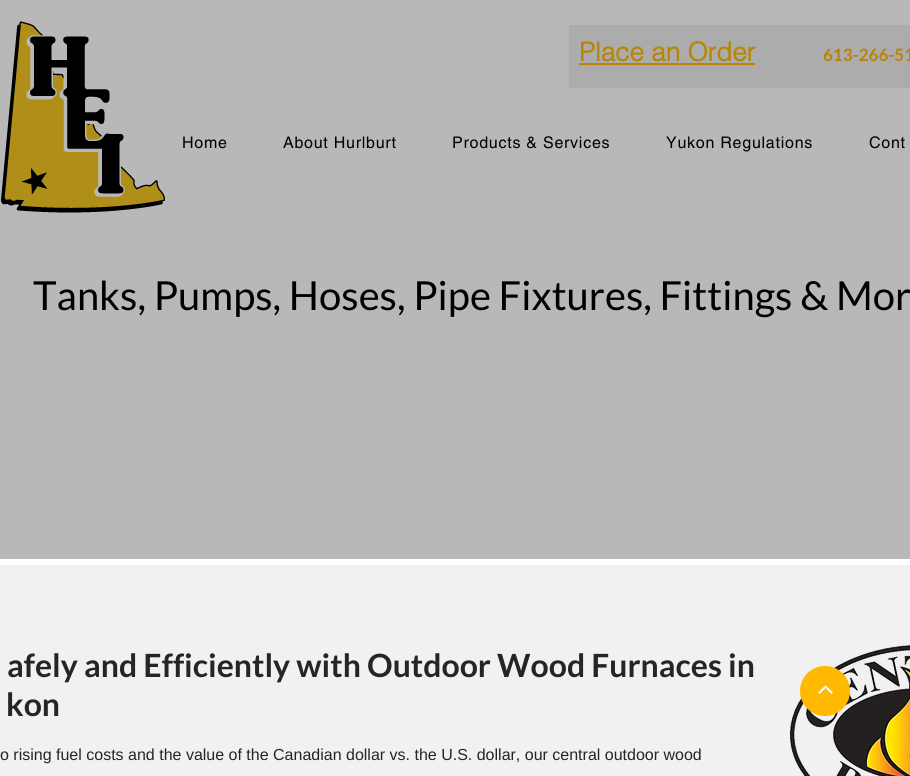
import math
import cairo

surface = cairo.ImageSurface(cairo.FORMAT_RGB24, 910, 776)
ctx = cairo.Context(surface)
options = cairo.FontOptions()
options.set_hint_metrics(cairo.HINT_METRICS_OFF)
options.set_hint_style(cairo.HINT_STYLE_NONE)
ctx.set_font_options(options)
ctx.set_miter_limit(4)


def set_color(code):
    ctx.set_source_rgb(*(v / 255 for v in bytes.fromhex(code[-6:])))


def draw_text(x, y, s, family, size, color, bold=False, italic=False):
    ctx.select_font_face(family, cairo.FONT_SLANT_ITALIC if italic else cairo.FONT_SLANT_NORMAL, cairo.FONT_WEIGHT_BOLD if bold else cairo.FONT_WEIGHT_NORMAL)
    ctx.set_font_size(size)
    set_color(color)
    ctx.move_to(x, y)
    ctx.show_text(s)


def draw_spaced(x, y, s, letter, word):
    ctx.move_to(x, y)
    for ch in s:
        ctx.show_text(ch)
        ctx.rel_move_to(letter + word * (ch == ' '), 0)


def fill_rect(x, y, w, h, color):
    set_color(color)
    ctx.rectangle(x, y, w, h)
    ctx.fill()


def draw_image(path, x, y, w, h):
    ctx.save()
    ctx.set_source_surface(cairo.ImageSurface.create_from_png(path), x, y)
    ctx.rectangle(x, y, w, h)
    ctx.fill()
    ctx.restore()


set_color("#ffffff")
ctx.paint()
fill_rect(0, 0, 910, 559, "#b8b8b8")
draw_image("assets/img1.png", 1, 21, 164, 192)
fill_rect(569, 25, 341, 63, "#acacac")
draw_text(579, 61, "Place an Order", "helvetica", 26, "#b88500", bold=True)
fill_rect(579, 63, 176, 2, "#b88500")
draw_text(823, 61, "613-266-51", "Lato", 17, "#b88500", bold=True)
ctx.select_font_face("helvetica")
ctx.set_font_size(16)
set_color("#000000")
draw_spaced(182, 148, "Home", 0.75, 0)
draw_spaced(283, 148, "About Hurlburt", 0.75, 0)
draw_spaced(452, 148, "Products & Services", 0.75, 0)
draw_spaced(666, 148, "Yukon Regulations", 0.75, 0)
draw_spaced(869, 148, "Cont", 0.75, 0)
draw_text(33, 310, "Tanks, Pumps, Hoses, Pipe Fixtures, Fittings & Mor", "Lato", 40, "#000000")
fill_rect(0, 565, 910, 211, "#f1f1f1")
draw_text(7, 677, "afely and Efficiently with Outdoor Wood Furnaces in", "Lato", 32, "#252525", bold=True)
draw_text(6, 716, "kon", "Lato", 32, "#252525", bold=True)
draw_text(0, 760, "o rising fuel costs and the value of the Canadian dollar vs. the U.S. dollar, our central outdoor wood", "Liberation Sans", 16, "#252525")
draw_image("assets/img2.png", 790, 645, 120, 131)
set_color("#ffb900")
ctx.arc(825, 691, 25, 0, 2 * math.pi)
ctx.fill()
draw_image("assets/img3.png", 818, 685, 15, 9)
surface.write_to_png("output.png")
